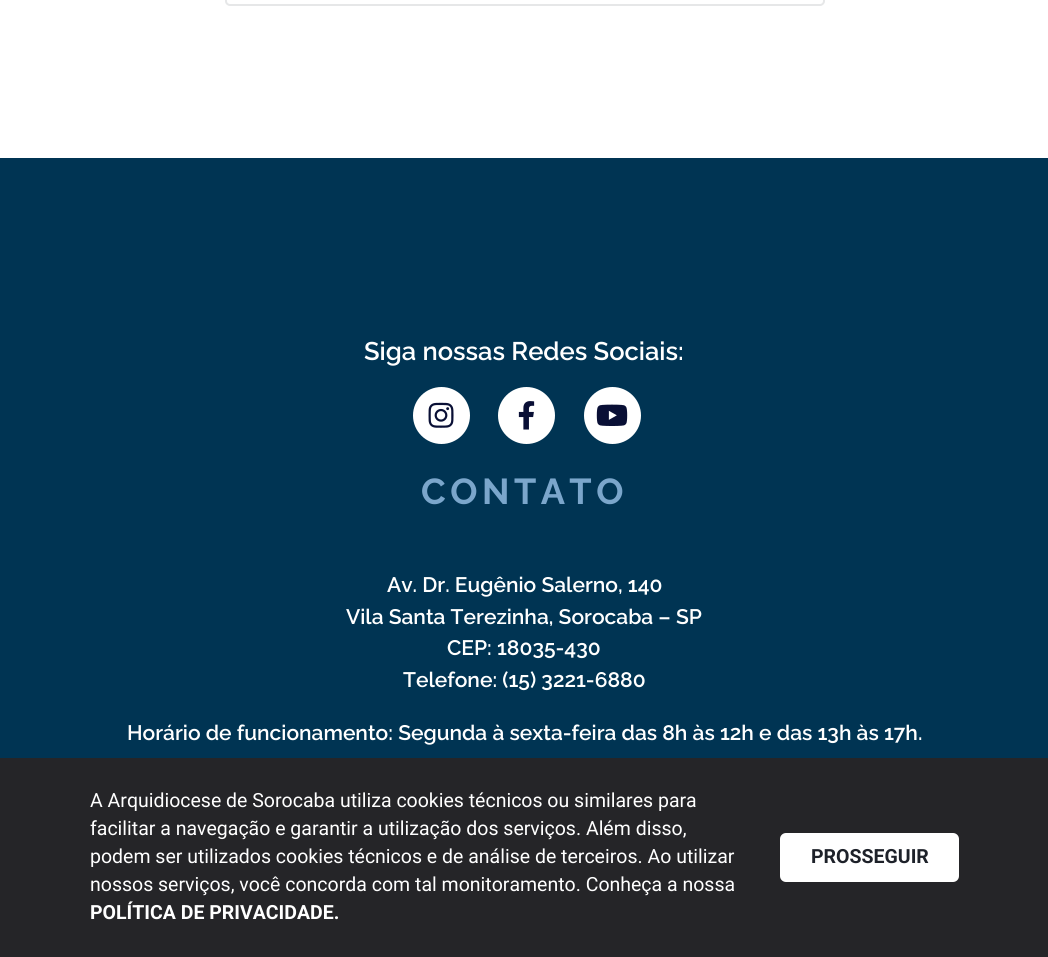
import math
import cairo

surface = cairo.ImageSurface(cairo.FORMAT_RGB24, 1048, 957)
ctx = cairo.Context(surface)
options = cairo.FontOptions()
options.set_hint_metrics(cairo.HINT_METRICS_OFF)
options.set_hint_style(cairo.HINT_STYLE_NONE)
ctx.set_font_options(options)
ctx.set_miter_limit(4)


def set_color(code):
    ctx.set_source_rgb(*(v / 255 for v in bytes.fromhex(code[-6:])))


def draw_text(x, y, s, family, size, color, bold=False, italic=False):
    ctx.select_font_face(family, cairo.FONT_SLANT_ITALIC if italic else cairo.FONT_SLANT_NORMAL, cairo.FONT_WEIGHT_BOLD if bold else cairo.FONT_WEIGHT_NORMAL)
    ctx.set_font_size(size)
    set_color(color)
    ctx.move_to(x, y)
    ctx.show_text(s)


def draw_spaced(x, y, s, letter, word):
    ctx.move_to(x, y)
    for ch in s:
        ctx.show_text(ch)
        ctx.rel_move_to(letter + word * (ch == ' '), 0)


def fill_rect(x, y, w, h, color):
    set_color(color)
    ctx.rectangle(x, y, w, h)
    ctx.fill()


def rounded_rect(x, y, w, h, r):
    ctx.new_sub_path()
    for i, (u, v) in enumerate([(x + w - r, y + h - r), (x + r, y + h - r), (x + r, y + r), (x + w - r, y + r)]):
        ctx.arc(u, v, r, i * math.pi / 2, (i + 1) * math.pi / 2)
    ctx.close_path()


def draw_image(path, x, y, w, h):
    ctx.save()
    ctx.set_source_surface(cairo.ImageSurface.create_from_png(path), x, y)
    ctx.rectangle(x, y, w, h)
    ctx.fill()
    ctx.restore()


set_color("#ffffff")
ctx.paint()
rounded_rect(226, -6, 598, 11, 4)
set_color("#e6e7e8")
ctx.stroke()
fill_rect(0, 158, 1048, 600, "#003453")
draw_text(364, 360, "Siga nossas Redes Sociais:", "Raleway SemiBold", 25.5, "#ffffff")
ctx.new_path()
ctx.arc(441.5, 415.5, 28.5, 0, 2 * math.pi)
ctx.fill()
draw_image("assets/img1.png", 428, 402, 26, 26)
ctx.arc(526.5, 415.5, 28.5, 0, 2 * math.pi)
ctx.fill()
draw_image("assets/img2.png", 518, 401, 17, 29)
ctx.arc(612.5, 415.5, 28.5, 0, 2 * math.pi)
ctx.fill()
draw_image("assets/img3.png", 596, 404, 32, 22)
ctx.select_font_face("Raleway", cairo.FONT_SLANT_NORMAL, cairo.FONT_WEIGHT_BOLD)
ctx.set_font_size(36)
set_color("#7ba6cb")
draw_spaced(421, 504, "CONTATO", 4.5, 0)
draw_text(387, 592, "Av. Dr. Eugênio Salerno, 140", "Raleway SemiBold", 21, "#ffffff")
draw_text(346, 624, "Vila Santa Terezinha, Sorocaba – SP", "Raleway SemiBold", 21, "#ffffff")
draw_text(447, 655, "CEP: 18035-430", "Raleway SemiBold", 21, "#ffffff")
draw_text(403, 687, "Telefone: (15) 3221-6880", "Raleway SemiBold", 21, "#ffffff")
draw_text(127, 740, "Horário de funcionamento: Segunda à sexta-feira das 8h às 12h e das 13h às 17h.", "Raleway SemiBold", 21, "#ffffff")
fill_rect(0, 758, 1048, 199, "#252528")
draw_text(90, 807, "A Arquidiocese de Sorocaba utiliza cookies técnicos ou similares para", "Roboto", 19.5, "#ffffff")
draw_text(90, 835, "facilitar a navegação e garantir a utilização dos serviços. Além disso,", "Roboto", 19.5, "#ffffff")
draw_text(90, 863, "podem ser utilizados cookies técnicos e de análise de terceiros. Ao utilizar", "Roboto", 19.5, "#ffffff")
draw_text(90, 891, "nossos serviços, você concorda com tal monitoramento. Conheça a nossa", "Roboto", 19.5, "#ffffff")
draw_text(90, 919, "POLÍTICA DE PRIVACIDADE.", "Roboto", 19.5, "#ffffff", bold=True)
rounded_rect(780, 833, 179, 49, 6)
ctx.fill()
draw_text(811, 863, "PROSSEGUIR", "Roboto", 19.5, "#1d2129", bold=True)
surface.write_to_png("output.png")
